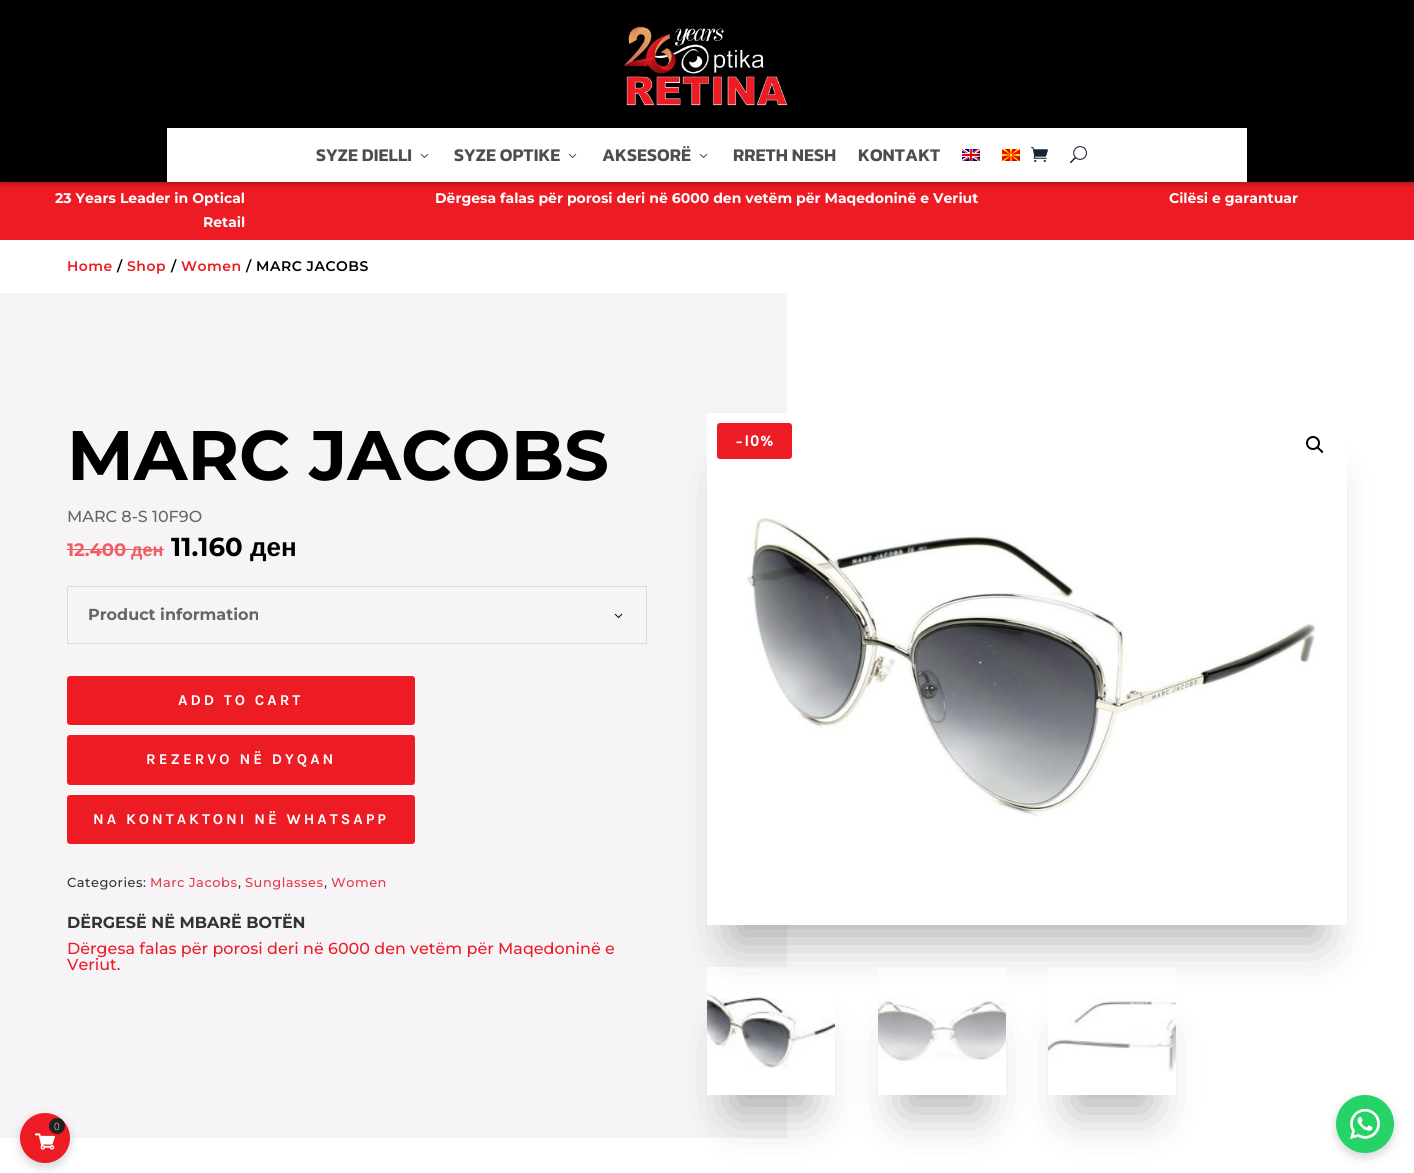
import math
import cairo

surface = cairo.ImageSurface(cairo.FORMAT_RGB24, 1414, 1173)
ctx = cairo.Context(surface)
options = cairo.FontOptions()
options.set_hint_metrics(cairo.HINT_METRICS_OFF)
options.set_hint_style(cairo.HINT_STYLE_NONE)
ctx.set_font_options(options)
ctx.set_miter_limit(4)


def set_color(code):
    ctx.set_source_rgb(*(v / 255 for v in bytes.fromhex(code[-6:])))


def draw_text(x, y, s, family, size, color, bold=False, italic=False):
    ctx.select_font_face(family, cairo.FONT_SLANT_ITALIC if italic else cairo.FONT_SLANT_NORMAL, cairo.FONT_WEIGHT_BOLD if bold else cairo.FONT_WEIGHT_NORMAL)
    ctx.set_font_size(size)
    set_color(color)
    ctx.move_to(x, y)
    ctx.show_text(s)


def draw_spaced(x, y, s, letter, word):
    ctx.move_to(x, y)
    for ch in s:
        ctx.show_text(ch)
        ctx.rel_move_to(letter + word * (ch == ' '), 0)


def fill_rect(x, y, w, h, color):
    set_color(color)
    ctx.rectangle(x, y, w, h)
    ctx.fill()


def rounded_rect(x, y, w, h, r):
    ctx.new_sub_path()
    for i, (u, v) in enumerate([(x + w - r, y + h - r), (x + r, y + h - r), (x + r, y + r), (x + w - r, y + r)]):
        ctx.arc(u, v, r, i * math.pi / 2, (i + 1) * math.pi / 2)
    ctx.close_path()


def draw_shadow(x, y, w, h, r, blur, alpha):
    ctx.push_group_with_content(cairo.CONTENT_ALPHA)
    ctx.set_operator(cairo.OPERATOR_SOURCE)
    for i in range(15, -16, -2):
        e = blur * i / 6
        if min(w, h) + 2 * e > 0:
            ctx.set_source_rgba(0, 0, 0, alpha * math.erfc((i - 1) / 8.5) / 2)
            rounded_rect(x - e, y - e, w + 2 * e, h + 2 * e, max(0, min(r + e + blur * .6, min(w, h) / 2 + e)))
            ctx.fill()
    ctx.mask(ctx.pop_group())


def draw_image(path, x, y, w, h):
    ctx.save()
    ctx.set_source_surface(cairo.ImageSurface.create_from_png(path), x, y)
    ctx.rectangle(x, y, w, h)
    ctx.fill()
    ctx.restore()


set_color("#ffffff")
ctx.paint()
fill_rect(0, 0, 1414, 128, "#000000")
draw_image("assets/img1.png", 623, 26, 165, 80)
fill_rect(0, 182, 1414, 58, "#ed1c24")
set_color("#000000")
draw_shadow(1, 132, 1412, 52, 0, 2.5, 0.3)
fill_rect(0, 128, 1414, 54, "#000000")
fill_rect(167, 128, 1080, 54, "#ffffff")
draw_text(316, 161, "SYZE DIELLI", "Kanit SemiBold", 18, "#4d4d4d")
draw_image("assets/img2.png", 420, 153, 9, 5)
draw_text(454, 161, "SYZE OPTIKE", "Kanit SemiBold", 18, "#4d4d4d")
draw_image("assets/img2.png", 568, 153, 9, 5)
draw_text(602, 161, "AKSESORË", "Kanit SemiBold", 18, "#4d4d4d")
draw_image("assets/img2.png", 699, 153, 9, 5)
draw_text(733, 161, "RRETH NESH", "Kanit SemiBold", 18, "#4d4d4d")
draw_text(858, 161, "KONTAKT", "Kanit SemiBold", 18, "#4d4d4d")
draw_image("assets/img3.png", 962, 149, 18, 12)
draw_image("assets/img4.png", 1002, 149, 18, 12)
draw_image("assets/img5.png", 1031, 147, 17, 15)
draw_image("assets/img6.png", 1070, 146, 17, 18)
draw_text(55, 203, "23 Years Leader in Optical", "Montserrat Thin", 14, "#ffffff")
draw_text(203, 227, "Retail", "Montserrat Thin", 14, "#ffffff")
draw_text(435, 203, "Dërgesa falas për porosi deri në 6000 den vetëm për Maqedoninë e Veriut", "Montserrat Thin", 14, "#ffffff")
draw_text(1169, 203, "Cilësi e garantuar", "Montserrat Thin", 14, "#ffffff")
ctx.select_font_face("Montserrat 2 Thin")
set_color("#ed1c24")
draw_spaced(67, 271, "Home", 0.5, 0)
set_color("#000000")
draw_spaced(117, 271, "/", 0.5, 0)
set_color("#ed1c24")
draw_spaced(127, 271, "Shop", 0.5, 0)
set_color("#000000")
draw_spaced(171, 271, "/", 0.5, 0)
set_color("#ed1c24")
draw_spaced(181, 271, "Women", 0.5, 0)
set_color("#000000")
draw_spaced(246, 271, "/ MARC JACOBS", 0.5, 0)
fill_rect(0, 293, 707, 845, "#f6f4f7")
fill_rect(707, 293, 80, 845, "#f4f4f4")
draw_text(67, 480, "MARC JACOBS", "Montserrat Thin", 70, "#000000")
draw_text(67, 522, "MARC 8-S 10F9O", "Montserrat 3 Thin", 16, "#666666")
draw_text(67, 556, "12.400", "Montserrat Thin", 18, "#f05d63")
fill_rect(67, 549, 64, 1, "#f05d63")
fill_rect(131, 549, 33, 1, "#f05d63")
draw_text(131, 556, "ден", "Liberation Sans", 18, "#f05d63", bold=True)
draw_text(171, 556, "11.160", "Montserrat Thin", 26, "#000000")
draw_text(250, 556, "ден", "Liberation Sans", 26, "#000000", bold=True)
ctx.rectangle(67.5, 586.5, 579, 57)
set_color("#d9d9d9")
ctx.set_line_width(1)
ctx.stroke()
draw_text(88, 620, "Product information", "Montserrat Thin", 16, "#666666")
draw_image("assets/img7.png", 614, 613, 9, 5)
set_color("#ed1c24")
rounded_rect(67, 676, 348, 49, 3)
ctx.fill()
ctx.select_font_face("Karla", cairo.FONT_SLANT_NORMAL, cairo.FONT_WEIGHT_BOLD)
ctx.set_font_size(15)
set_color("#ffffff")
draw_spaced(178, 705, "ADD TO CART", 3, 0)
set_color("#ed1c24")
rounded_rect(67, 735, 348, 50, 3)
ctx.fill()
set_color("#ffffff")
draw_spaced(146, 764, "REZERVO NË DYQAN", 3, 0)
set_color("#ed1c24")
rounded_rect(67, 795, 348, 49, 3)
ctx.fill()
set_color("#ffffff")
draw_spaced(93, 824, "NA KONTAKTONI NË WHATSAPP", 3, 0)
ctx.select_font_face("Montserrat 3 Thin")
ctx.set_font_size(13)
set_color("#333333")
draw_spaced(67, 887, "Categories:", 0.5, 0)
set_color("#e63c49")
draw_spaced(150, 887, "Marc Jacobs", 0.5, 0)
set_color("#333333")
draw_spaced(238, 887, ",", 0.5, 0)
set_color("#e63c49")
draw_spaced(245, 887, "Sunglasses", 0.5, 0)
set_color("#333333")
draw_spaced(324, 887, ",", 0.5, 0)
set_color("#e63c49")
draw_spaced(331, 887, "Women", 0.5, 0)
draw_text(67, 928, "DËRGESË NË MBARË BOTËN", "Montserrat Thin", 16, "#333333")
draw_text(67, 954, "Dërgesa falas për porosi deri në 6000 den vetëm për Maqedoninë e", "Montserrat 3 Thin", 16, "#ed1c24")
draw_text(67, 970, "Veriut.", "Montserrat 3 Thin", 16, "#ed1c24")
set_color("#000000")
draw_shadow(733, 1035, 76, 76, 0, 24, 0.3)
draw_image("assets/img9.png", 707, 967, 128, 128)
ctx.save()
ctx.set_fill_rule(cairo.FILL_RULE_EVEN_ODD)
ctx.new_path()
ctx.move_to(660, 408)
ctx.line_to(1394, 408)
ctx.line_to(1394, 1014)
ctx.line_to(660, 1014)
ctx.close_path()
ctx.move_to(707, 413)
ctx.line_to(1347, 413)
ctx.line_to(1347, 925)
ctx.line_to(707, 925)
ctx.close_path()
ctx.clip()
draw_shadow(733, 481, 588, 460, 0, 24, 0.3)
ctx.restore()
draw_image("assets/img8.png", 707, 413, 609, 512)
ctx.arc(1313, 443, 6, 0, 2 * math.pi)
set_color("#000000")
ctx.set_line_width(2)
ctx.stroke()
ctx.new_path()
ctx.move_to(1317, 447)
ctx.curve_to(1318.5, 446, 1320, 448.5, 1320.5, 449)
ctx.curve_to(1321.5, 449.5, 1324, 451.5, 1323, 452.5)
ctx.curve_to(1321.5, 454, 1320, 451, 1319.5, 450.5)
ctx.curve_to(1318.5, 450, 1316, 448, 1317, 447)
ctx.close_path()
ctx.fill()
ctx.save()
ctx.set_fill_rule(cairo.FILL_RULE_EVEN_ODD)
ctx.new_path()
ctx.move_to(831, 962)
ctx.line_to(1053, 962)
ctx.line_to(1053, 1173)
ctx.line_to(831, 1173)
ctx.close_path()
ctx.move_to(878, 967)
ctx.line_to(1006, 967)
ctx.line_to(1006, 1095)
ctx.line_to(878, 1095)
ctx.close_path()
ctx.clip()
set_color("#000000")
draw_shadow(904, 1035, 76, 76, 0, 24, 0.3)
ctx.restore()
ctx.save()
ctx.set_fill_rule(cairo.FILL_RULE_EVEN_ODD)
ctx.new_path()
ctx.move_to(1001, 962)
ctx.line_to(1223, 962)
ctx.line_to(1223, 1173)
ctx.line_to(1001, 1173)
ctx.close_path()
ctx.move_to(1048, 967)
ctx.line_to(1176, 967)
ctx.line_to(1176, 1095)
ctx.line_to(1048, 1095)
ctx.close_path()
ctx.clip()
set_color("#000000")
draw_shadow(1074, 1035, 76, 76, 0, 24, 0.3)
ctx.restore()
draw_image("assets/img10.png", 878, 967, 128, 97)
draw_image("assets/img11.png", 1048, 967, 128, 105)
set_color("#ed1c24")
rounded_rect(717, 423, 75, 36, 3)
ctx.fill()
ctx.select_font_face("Alata", cairo.FONT_SLANT_NORMAL, cairo.FONT_WEIGHT_BOLD)
ctx.set_font_size(14)
set_color("#ffffff")
draw_spaced(735, 446, "-10%", 1, 0)
set_color("#000000")
draw_shadow(20, 1117, 50, 50, 25, 5, 0.17)
set_color("#ed1c24")
ctx.arc(45, 1138, 25, 0, 2 * math.pi)
ctx.fill()
draw_image("assets/img12.png", 35, 1133, 20, 17)
set_color("#212121")
ctx.arc(57, 1126, 8, 0, 2 * math.pi)
ctx.fill()
draw_text(54, 1130, "0", "Open Sans Light", 10, "#ffffff")
set_color("#000000")
draw_shadow(1336, 1099, 58, 58, 29, 5, 0.17)
set_color("#25d366")
ctx.arc(1365, 1124, 29, 0, 2 * math.pi)
ctx.fill()
draw_image("assets/img13.png", 1350, 1109, 30, 30)
surface.write_to_png("output.png")
